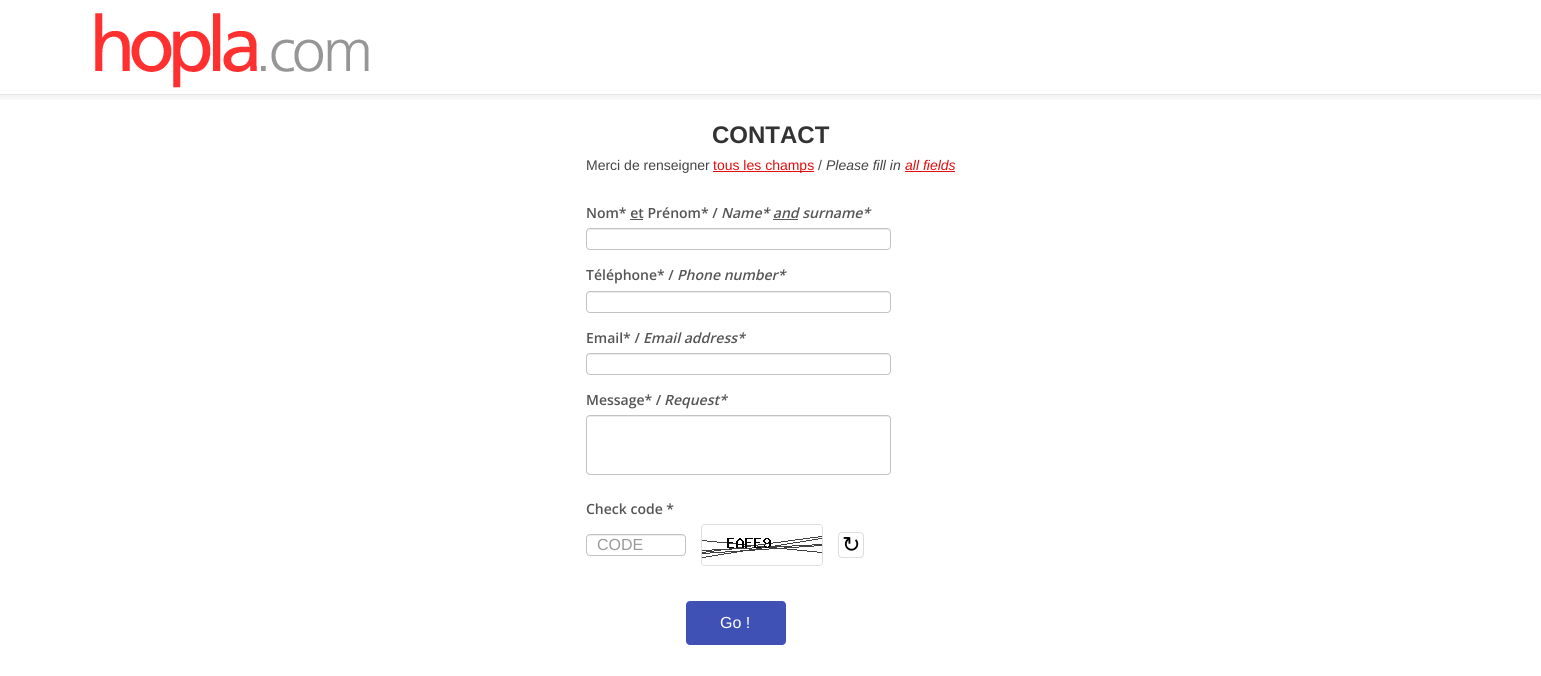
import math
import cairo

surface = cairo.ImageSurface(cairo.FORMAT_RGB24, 1541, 676)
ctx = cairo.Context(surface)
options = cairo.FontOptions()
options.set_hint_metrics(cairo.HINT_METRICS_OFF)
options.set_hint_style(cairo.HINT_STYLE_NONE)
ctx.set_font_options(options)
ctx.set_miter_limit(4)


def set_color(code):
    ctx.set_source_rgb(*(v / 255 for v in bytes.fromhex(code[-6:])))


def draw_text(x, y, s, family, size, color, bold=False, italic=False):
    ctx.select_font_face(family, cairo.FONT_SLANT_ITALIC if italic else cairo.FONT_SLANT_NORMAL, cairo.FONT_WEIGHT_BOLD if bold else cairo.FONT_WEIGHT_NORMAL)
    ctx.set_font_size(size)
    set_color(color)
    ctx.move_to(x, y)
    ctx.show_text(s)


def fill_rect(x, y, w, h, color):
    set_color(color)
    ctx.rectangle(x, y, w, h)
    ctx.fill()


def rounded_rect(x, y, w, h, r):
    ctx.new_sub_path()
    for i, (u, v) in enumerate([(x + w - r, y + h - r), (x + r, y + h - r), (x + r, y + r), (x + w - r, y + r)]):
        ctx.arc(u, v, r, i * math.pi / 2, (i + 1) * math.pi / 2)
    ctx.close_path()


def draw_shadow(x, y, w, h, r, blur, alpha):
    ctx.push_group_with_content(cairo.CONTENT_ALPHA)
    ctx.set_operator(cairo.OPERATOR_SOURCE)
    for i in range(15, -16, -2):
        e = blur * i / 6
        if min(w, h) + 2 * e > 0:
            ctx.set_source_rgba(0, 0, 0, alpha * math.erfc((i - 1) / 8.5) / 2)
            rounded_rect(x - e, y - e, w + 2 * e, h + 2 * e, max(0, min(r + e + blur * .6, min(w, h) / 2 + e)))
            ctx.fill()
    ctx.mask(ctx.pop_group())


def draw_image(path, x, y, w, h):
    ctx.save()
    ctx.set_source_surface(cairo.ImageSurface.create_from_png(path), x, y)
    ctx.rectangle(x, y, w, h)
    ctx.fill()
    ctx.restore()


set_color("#ffffff")
ctx.paint()
ctx.save()
ctx.rectangle(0, 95, 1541, 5)
ctx.clip()
set_color("#000000")
draw_shadow(0, 1, 1541, 95, 0, 5, 0.1)
ctx.restore()
fill_rect(0, 94, 1541, 1, "#e6e6e6")
draw_image("assets/img1.png", 95, 13, 274, 75)
draw_text(712, 143, "CONTACT", "Liberation Sans", 24, "#333333", bold=True)
draw_text(586, 170, "Merci de renseigner", "Liberation Sans", 14, "#444444")
fill_rect(713, 171, 101, 1, "#e20e0e")
draw_text(713, 170, "tous les champs", "Liberation Sans", 14, "#e20e0e")
draw_text(818, 170, "/", "Liberation Sans", 14, "#444444")
draw_text(826, 170, "Please fill in", "Liberation Sans", 14, "#444444", italic=True)
draw_text(905, 170, "all fields", "Liberation Sans", 14, "#e20e0e", italic=True)
fill_rect(905, 171, 50, 1, "#e20e0e")
draw_text(586, 218, "Nom* et Prénom* /", "Open Sans SemiBold", 14, "#555555")
draw_text(721, 218, "Name* and surname*", "Open Sans SemiBold", 14, "#555555", italic=True)
fill_rect(773, 219, 25, 1, "#555555")
fill_rect(630, 219, 13, 1, "#555555")
set_color("#ececec")
ctx.new_path()
ctx.move_to(590, 230)
ctx.line_to(887, 230)
ctx.curve_to(889, 230, 890, 231, 890, 233)
ctx.line_to(889, 230)
ctx.line_to(888, 229)
ctx.line_to(590, 229)
ctx.curve_to(588, 229, 587, 231, 587, 233)
ctx.curve_to(587, 231, 588, 230, 590, 230)
ctx.close_path()
ctx.fill()
rounded_rect(586.5, 228.5, 304, 21, 3.5)
set_color("#c3c3c3")
ctx.set_line_width(1)
ctx.stroke()
draw_text(586, 280, "Téléphone* /", "Open Sans SemiBold", 14, "#555555")
draw_text(677, 280, "Phone number*", "Open Sans SemiBold", 14, "#555555", italic=True)
set_color("#ececec")
ctx.new_path()
ctx.move_to(590, 293)
ctx.line_to(887, 293)
ctx.curve_to(889, 293, 890, 294, 890, 296)
ctx.line_to(889, 293)
ctx.line_to(888, 292)
ctx.line_to(590, 292)
ctx.curve_to(588, 292, 587, 294, 587, 296)
ctx.curve_to(587, 294, 588, 293, 590, 293)
ctx.close_path()
ctx.fill()
rounded_rect(586.5, 291.5, 304, 21, 3.5)
set_color("#c3c3c3")
ctx.stroke()
draw_text(586, 343, "Email* /", "Open Sans SemiBold", 14, "#555555")
draw_text(643, 343, "Email address*", "Open Sans SemiBold", 14, "#555555", italic=True)
set_color("#ececec")
ctx.new_path()
ctx.move_to(590, 355)
ctx.line_to(887, 355)
ctx.curve_to(889, 355, 890, 356, 890, 358)
ctx.line_to(889, 355)
ctx.line_to(888, 354)
ctx.line_to(590, 354)
ctx.curve_to(588, 354, 587, 356, 587, 358)
ctx.curve_to(587, 356, 588, 355, 590, 355)
ctx.close_path()
ctx.fill()
rounded_rect(586.5, 353.5, 304, 21, 3.5)
set_color("#c3c3c3")
ctx.stroke()
draw_text(586, 405, "Message* /", "Open Sans SemiBold", 14, "#555555")
draw_text(664, 405, "Request*", "Open Sans SemiBold", 14, "#555555", italic=True)
set_color("#ececec")
ctx.new_path()
ctx.move_to(590, 417)
ctx.line_to(887, 417)
ctx.curve_to(889, 417, 890, 418, 890, 420)
ctx.line_to(889, 417)
ctx.line_to(888, 416)
ctx.line_to(590, 416)
ctx.curve_to(588, 416, 587, 418, 587, 420)
ctx.curve_to(587, 418, 588, 417, 590, 417)
ctx.close_path()
ctx.fill()
rounded_rect(586.5, 415.5, 304, 59, 3.5)
set_color("#c3c3c3")
ctx.stroke()
draw_text(586, 514, "Check code *", "Open Sans SemiBold", 14, "#555555")
set_color("#ececec")
ctx.new_path()
ctx.move_to(590, 536)
ctx.line_to(682, 536)
ctx.curve_to(684, 536, 685, 537, 685, 539)
ctx.curve_to(685, 531, 670, 535, 667, 535)
ctx.line_to(605, 535)
ctx.curve_to(602, 535, 587, 531, 587, 539)
ctx.curve_to(587, 537, 588, 536, 590, 536)
ctx.close_path()
ctx.fill()
rounded_rect(586.5, 534.5, 99, 21, 3.5)
set_color("#c3c3c3")
ctx.stroke()
draw_text(597, 550, "CODE", "Liberation Sans", 16, "#999999")
rounded_rect(701.5, 524.5, 121, 41, 3.5)
set_color("#dddddd")
ctx.stroke()
draw_image("assets/img2.png", 702, 525, 120, 40)
rounded_rect(838.5, 532.5, 25, 25, 3.5)
ctx.stroke()
draw_text(842, 552, "↻", "DejaVu Sans", 22, "#000000")
set_color("#3f51b5")
rounded_rect(686, 601, 100, 44, 4)
ctx.fill()
draw_text(720, 628, "Go !", "Liberation Sans", 16, "#ffffff")
surface.write_to_png("output.png")
